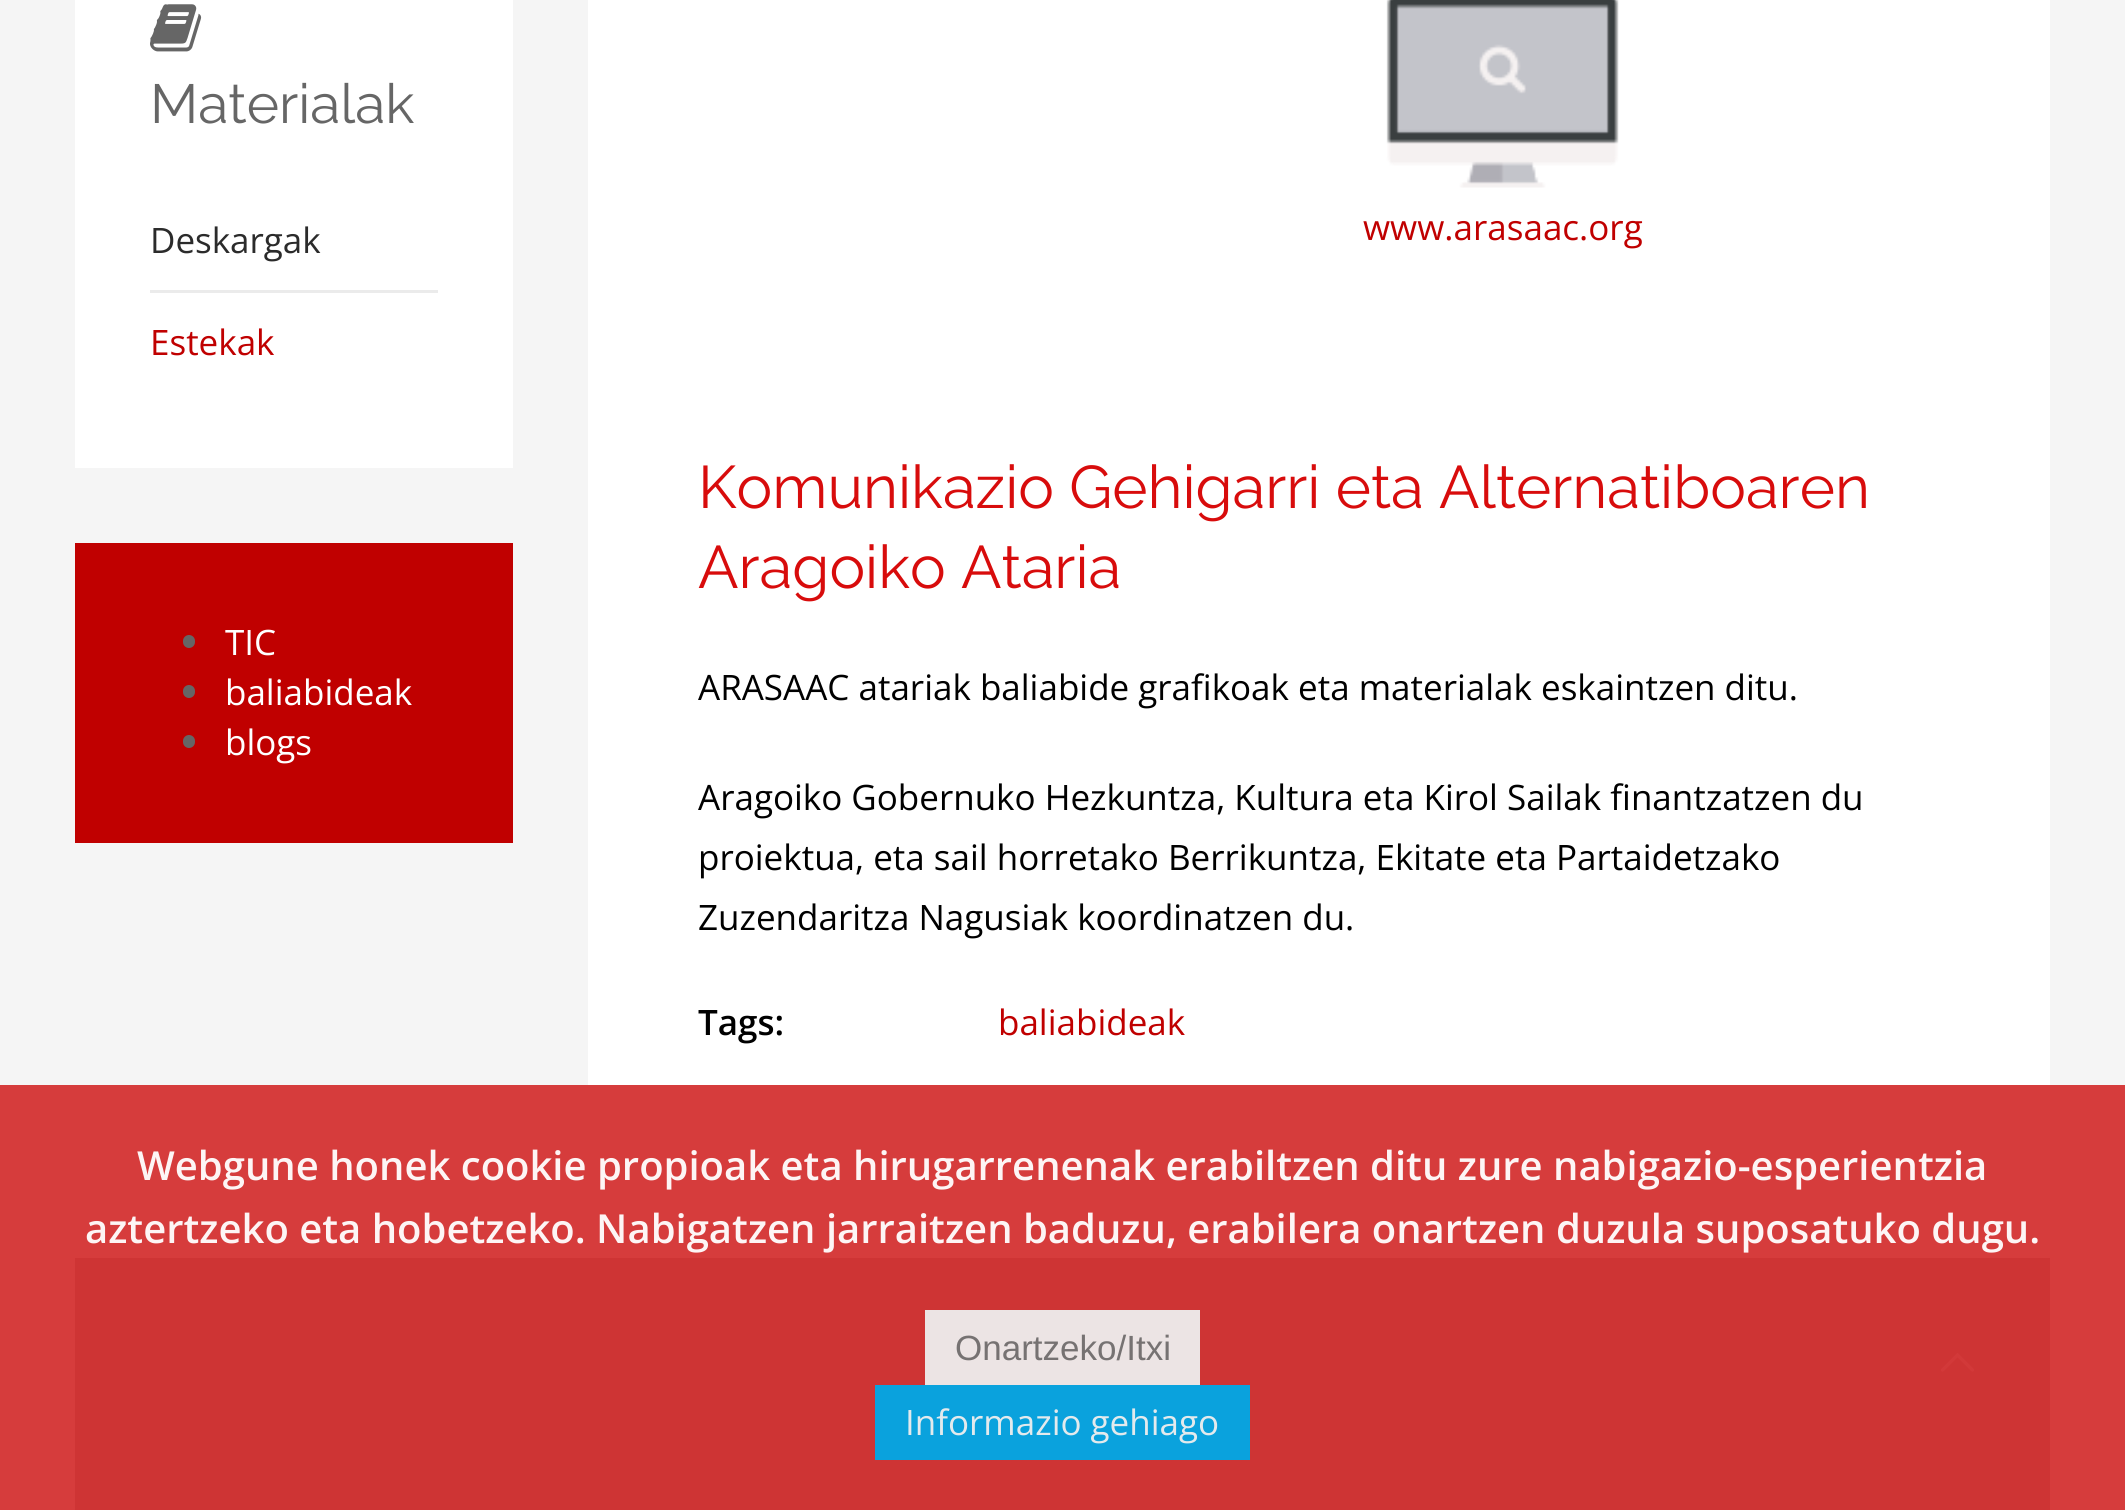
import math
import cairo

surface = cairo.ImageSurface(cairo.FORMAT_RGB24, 2125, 1510)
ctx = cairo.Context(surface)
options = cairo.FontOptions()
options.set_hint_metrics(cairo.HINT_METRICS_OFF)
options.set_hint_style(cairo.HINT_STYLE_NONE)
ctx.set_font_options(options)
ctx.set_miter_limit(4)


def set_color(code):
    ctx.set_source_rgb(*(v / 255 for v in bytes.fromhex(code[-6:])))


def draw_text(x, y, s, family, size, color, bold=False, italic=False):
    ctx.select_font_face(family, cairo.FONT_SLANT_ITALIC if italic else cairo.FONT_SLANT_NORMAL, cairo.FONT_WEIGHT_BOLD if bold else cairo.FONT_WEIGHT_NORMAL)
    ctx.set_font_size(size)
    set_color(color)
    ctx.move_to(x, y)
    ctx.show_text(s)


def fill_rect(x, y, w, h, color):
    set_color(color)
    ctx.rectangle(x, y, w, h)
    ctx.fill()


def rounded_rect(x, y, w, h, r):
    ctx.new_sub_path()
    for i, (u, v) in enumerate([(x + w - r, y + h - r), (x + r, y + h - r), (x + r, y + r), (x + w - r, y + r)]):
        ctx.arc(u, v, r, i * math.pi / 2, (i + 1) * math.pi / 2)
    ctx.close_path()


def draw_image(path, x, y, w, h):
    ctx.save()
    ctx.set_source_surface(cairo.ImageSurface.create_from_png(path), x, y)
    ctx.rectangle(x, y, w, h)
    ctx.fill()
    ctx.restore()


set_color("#f5f5f5")
ctx.paint()
fill_rect(75, 0, 438, 468, "#ffffff")
draw_image("assets/img1.png", 150, 4, 52, 48)
draw_text(150, 123, "Materialak", "Raleway", 55, "#666666")
draw_text(150, 253, "Deskargak", "Open Sans", 35, "#2b2b2b")
fill_rect(150, 290, 288, 3, "#ebebeb")
draw_text(150, 355, "Estekak", "Open Sans", 35, "#c00000")
fill_rect(75, 543, 438, 300, "#c00000")
set_color("#666666")
rounded_rect(183, 635, 12, 13, 6)
ctx.fill()
draw_text(225, 655, "TIC", "Open Sans", 35, "#ffffff")
set_color("#666666")
rounded_rect(183, 685, 12, 13, 6)
ctx.fill()
draw_text(225, 705, "baliabideak", "Open Sans", 35, "#ffffff")
set_color("#666666")
rounded_rect(183, 735, 12, 13, 6)
ctx.fill()
draw_text(225, 755, "blogs", "Open Sans", 35, "#ffffff")
fill_rect(588, 0, 1462, 1183, "#ffffff")
draw_image("assets/img2.png", 1386, 0, 233, 188)
draw_text(1363, 240, "www.arasaac.org", "Open Sans", 35, "#c00000")
draw_text(698, 508, "Komunikazio Gehigarri eta Alternatiboaren", "Raleway", 60, "#d80c0c")
draw_text(698, 588, "Aragoiko Ataria", "Raleway", 60, "#d80c0c")
draw_text(698, 700, "ARASAAC atariak baliabide grafikoak eta materialak eskaintzen ditu.", "Open Sans", 35, "#000000")
draw_text(698, 810, "Aragoiko Gobernuko Hezkuntza, Kultura eta Kirol Sailak finantzatzen du", "Open Sans", 35, "#000000")
draw_text(698, 870, "proiektua, eta sail horretako Berrikuntza, Ekitate eta Partaidetzako", "Open Sans", 35, "#000000")
draw_text(698, 930, "Zuzendaritza Nagusiak koordinatzen du.", "Open Sans", 35, "#000000")
draw_text(698, 1035, "Tags:", "Open Sans SemiBold", 35, "#000000")
draw_text(998, 1035, "baliabideak", "Open Sans", 35, "#c00000")
fill_rect(75, 1258, 1975, 252, "#4c5054")
draw_image("assets/img3.png", 1940, 1352, 35, 20)
ctx.set_source_rgba(0.831, 0.2, 0.2, 0.95)
ctx.rectangle(0, 1085, 2125, 425)
ctx.fill()
draw_text(137, 1180, "Webgune honek cookie propioak eta hirugarrenenak erabiltzen ditu zure nabigazio-esperientzia", "Open Sans SemiBold", 40, "#fdf5f5")
draw_text(85, 1243, "aztertzeko eta hobetzeko. Nabigatzen jarraitzen baduzu, erabilera onartzen duzula suposatuko dugu.", "Open Sans SemiBold", 40, "#fdf5f5")
ctx.set_source_rgba(0.933, 0.933, 0.933, 0.95)
ctx.rectangle(925, 1310, 275, 75)
ctx.fill()
draw_text(955, 1360, "Onartzeko/Itxi", "Liberation Sans", 35, "#767272")
ctx.set_source_rgba(0, 0.659, 0.902, 0.95)
ctx.rectangle(875, 1385, 375, 75)
ctx.fill()
draw_text(905, 1435, "Informazio gehiago", "Open Sans", 35, "#e3eaed")
surface.write_to_png("output.png")
